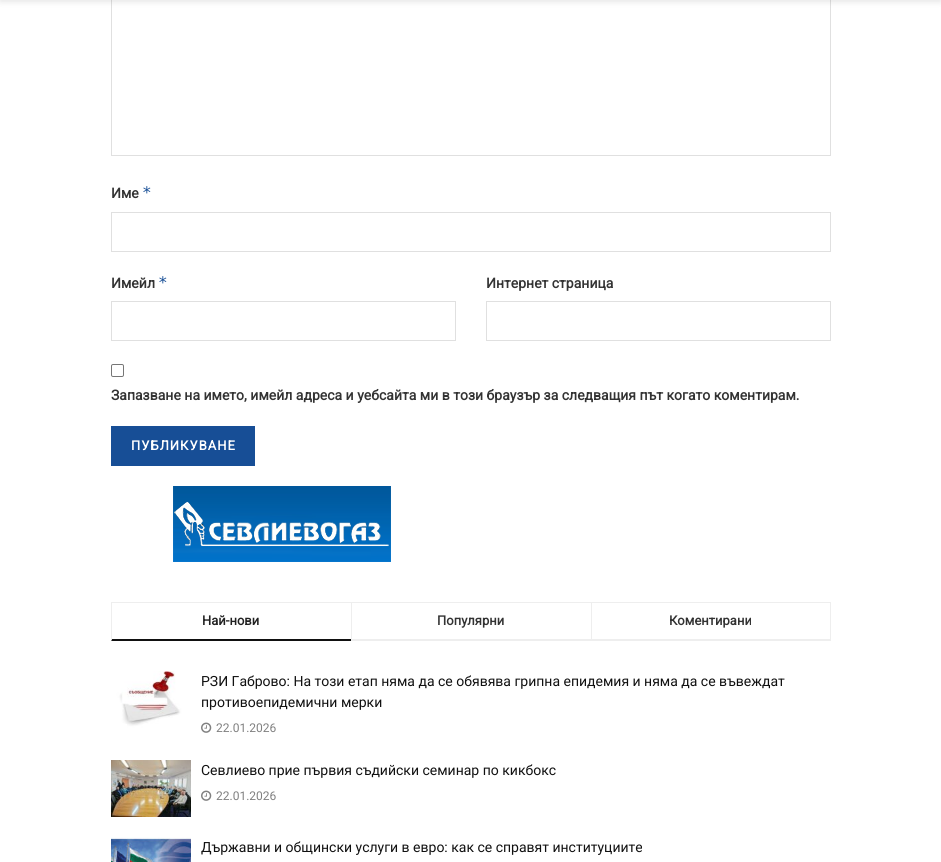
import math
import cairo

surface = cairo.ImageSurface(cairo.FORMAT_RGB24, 941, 862)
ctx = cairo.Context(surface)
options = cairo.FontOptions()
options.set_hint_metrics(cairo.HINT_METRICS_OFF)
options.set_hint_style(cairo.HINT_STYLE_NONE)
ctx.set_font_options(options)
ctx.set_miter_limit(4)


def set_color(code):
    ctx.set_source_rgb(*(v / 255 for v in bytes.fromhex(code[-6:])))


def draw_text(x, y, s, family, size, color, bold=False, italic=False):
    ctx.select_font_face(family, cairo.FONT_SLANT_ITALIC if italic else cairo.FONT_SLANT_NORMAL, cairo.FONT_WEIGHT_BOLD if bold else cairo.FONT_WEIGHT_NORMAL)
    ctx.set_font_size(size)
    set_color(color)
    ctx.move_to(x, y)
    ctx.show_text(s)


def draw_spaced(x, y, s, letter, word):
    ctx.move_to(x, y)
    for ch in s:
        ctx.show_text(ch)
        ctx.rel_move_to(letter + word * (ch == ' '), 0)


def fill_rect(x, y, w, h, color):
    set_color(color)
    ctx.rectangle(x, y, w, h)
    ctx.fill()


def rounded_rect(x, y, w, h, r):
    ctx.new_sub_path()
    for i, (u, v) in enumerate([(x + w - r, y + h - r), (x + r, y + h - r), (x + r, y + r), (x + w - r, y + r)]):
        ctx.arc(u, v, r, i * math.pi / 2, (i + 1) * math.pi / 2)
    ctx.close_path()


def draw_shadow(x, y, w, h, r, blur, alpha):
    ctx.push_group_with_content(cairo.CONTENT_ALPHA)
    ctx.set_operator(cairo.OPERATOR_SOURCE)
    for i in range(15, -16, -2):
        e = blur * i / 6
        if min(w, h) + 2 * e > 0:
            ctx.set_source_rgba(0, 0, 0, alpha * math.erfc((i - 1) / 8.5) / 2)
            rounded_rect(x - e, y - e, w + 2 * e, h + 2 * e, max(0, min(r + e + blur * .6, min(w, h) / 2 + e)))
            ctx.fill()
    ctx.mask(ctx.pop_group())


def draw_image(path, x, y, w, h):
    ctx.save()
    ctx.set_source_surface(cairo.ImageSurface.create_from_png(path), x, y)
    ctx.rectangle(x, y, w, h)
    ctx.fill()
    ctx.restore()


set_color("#ffffff")
ctx.paint()
ctx.rectangle(111.5, -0.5, 719, 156)
set_color("#e0e0e0")
ctx.set_line_width(1)
ctx.stroke()
set_color("#000000")
draw_shadow(0, -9, 941, 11, 0, 3, 0.1)
draw_text(111, 198, "Име", "Roboto", 14, "#333333", bold=True)
draw_text(142, 198, "*", "DejaVu Sans Mono", 16, "#174e96")
ctx.rectangle(111.5, 212.5, 719, 39)
set_color("#e0e0e0")
ctx.stroke()
draw_text(111, 288, "Имейл", "Roboto", 14, "#333333", bold=True)
draw_text(158, 288, "*", "DejaVu Sans Mono", 16, "#174e96")
ctx.rectangle(111.5, 301.5, 344, 39)
set_color("#e0e0e0")
ctx.stroke()
draw_text(486, 288, "Интернет страница", "Roboto", 14, "#333333", bold=True)
ctx.rectangle(486.5, 301.5, 344, 39)
set_color("#e0e0e0")
ctx.stroke()
rounded_rect(111.5, 364.5, 12, 12, 1.5)
set_color("#767676")
ctx.stroke()
draw_text(111, 400, "Запазване на името, имейл адреса и уебсайта ми в този браузър за следващия път когато коментирам.", "Roboto", 14, "#333333", bold=True)
fill_rect(111, 426, 144, 40, "#174e96")
ctx.set_font_size(13)
set_color("#ffffff")
draw_spaced(131, 450, "ПУБЛИКУВАНЕ", 1, 0)
draw_image("assets/img1.png", 173, 486, 218, 76)
fill_rect(111, 602, 720, 1, "#eeeeee")
set_color("#111111")
ctx.new_path()
ctx.move_to(351, 641)
ctx.line_to(111, 641)
ctx.line_to(112, 639)
ctx.line_to(351, 639)
ctx.close_path()
ctx.fill()
set_color("#eeeeee")
ctx.new_path()
ctx.move_to(111, 641)
ctx.line_to(111, 602)
ctx.line_to(112, 603)
ctx.line_to(112, 639)
ctx.close_path()
ctx.fill()
draw_text(202, 625, "Най-нови", "Roboto", 13, "#212121", bold=True)
fill_rect(351, 639, 240, 2, "#eeeeee")
fill_rect(351, 602, 1, 39, "#eeeeee")
draw_text(437, 625, "Популярни", "Roboto", 13, "#333333", bold=True)
fill_rect(830, 602, 1, 39, "#eeeeee")
fill_rect(591, 639, 240, 2, "#eeeeee")
fill_rect(591, 602, 1, 39, "#eeeeee")
draw_text(669, 625, "Коментирани", "Roboto", 13, "#333333", bold=True)
draw_image("assets/img2.png", 111, 671, 80, 57)
draw_text(201, 686, "РЗИ Габрово: На този етап няма да се обявява грипна епидемия и няма да се въвеждат", "Roboto", 14, "#111111")
draw_text(201, 707, "противоепидемични мерки", "Roboto", 14, "#111111")
draw_image("assets/img3.png", 201, 722, 11, 11)
draw_text(216, 732, "22.01.2026", "Roboto", 12, "#808080")
draw_image("assets/img4.png", 111, 760, 80, 57)
draw_text(201, 775, "Севлиево прие първия съдийски семинар по кикбокс", "Roboto", 14, "#111111")
draw_image("assets/img3.png", 201, 790, 11, 11)
draw_text(216, 800, "22.01.2026", "Roboto", 12, "#808080")
draw_image("assets/img5.png", 111, 837, 80, 25)
draw_text(201, 852, "Държавни и общински услуги в евро: как се справят институциите", "Roboto", 14, "#111111")
surface.write_to_png("output.png")
